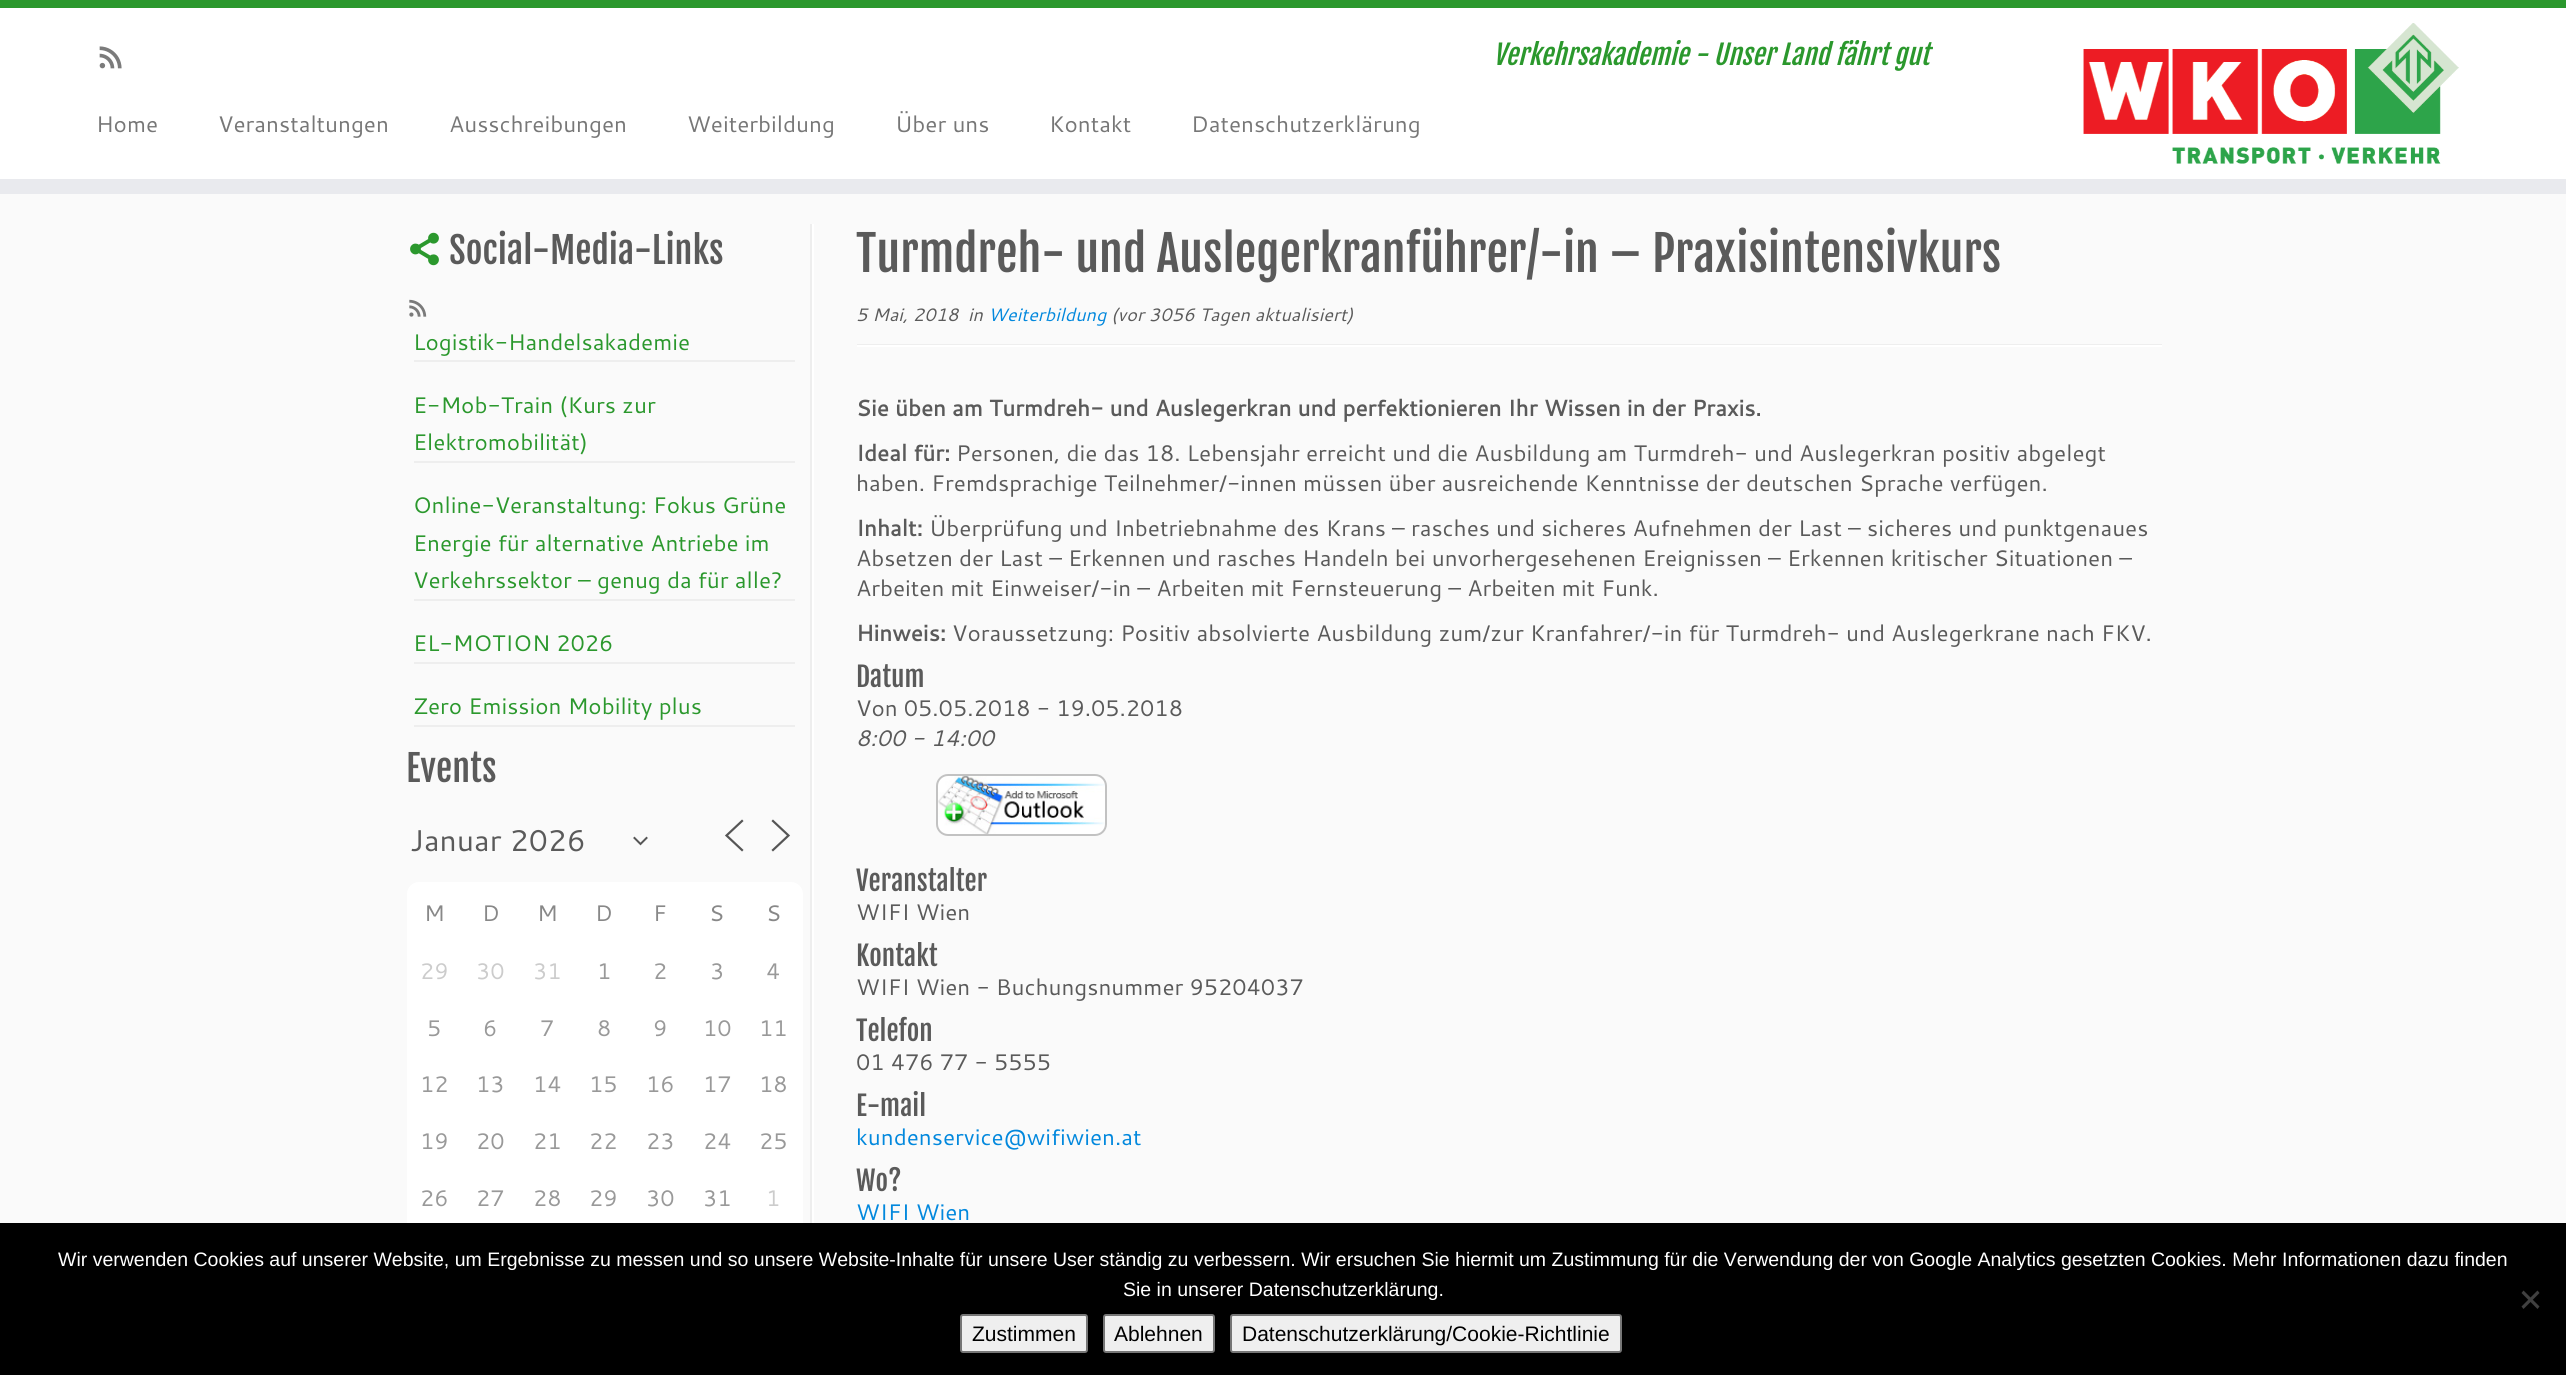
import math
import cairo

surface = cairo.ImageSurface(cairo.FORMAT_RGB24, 2566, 1375)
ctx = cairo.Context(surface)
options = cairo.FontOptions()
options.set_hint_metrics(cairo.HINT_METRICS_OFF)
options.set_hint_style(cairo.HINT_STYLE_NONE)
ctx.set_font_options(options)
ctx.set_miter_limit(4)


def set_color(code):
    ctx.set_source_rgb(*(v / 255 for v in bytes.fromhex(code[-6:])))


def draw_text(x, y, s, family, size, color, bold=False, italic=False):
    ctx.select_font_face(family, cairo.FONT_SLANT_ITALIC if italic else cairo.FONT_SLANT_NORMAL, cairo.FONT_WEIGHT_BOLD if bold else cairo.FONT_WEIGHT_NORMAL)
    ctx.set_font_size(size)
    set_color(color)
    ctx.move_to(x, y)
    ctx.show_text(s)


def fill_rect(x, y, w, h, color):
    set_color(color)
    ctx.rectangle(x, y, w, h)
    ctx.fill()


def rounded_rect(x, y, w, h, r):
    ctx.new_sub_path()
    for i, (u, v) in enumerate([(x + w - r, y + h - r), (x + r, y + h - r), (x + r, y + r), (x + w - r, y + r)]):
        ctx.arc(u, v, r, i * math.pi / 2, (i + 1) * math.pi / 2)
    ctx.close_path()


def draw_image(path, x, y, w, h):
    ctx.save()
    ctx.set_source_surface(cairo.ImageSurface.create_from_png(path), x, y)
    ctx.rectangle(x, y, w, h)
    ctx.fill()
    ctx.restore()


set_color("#fafafa")
ctx.paint()
fill_rect(0, 8, 2566, 171, "#ffffff")
fill_rect(0, 0, 2566, 8, "#2b982d")
fill_rect(0, 179, 2566, 15, "#e9eaee")
draw_image("assets/img1.png", 99, 46, 23, 23)
draw_text(1493, 65, "Verkehrsakademie - Unser Land fährt gut", "Fjalla One", 27, "#2b982d", italic=True)
draw_text(96, 132, "Home", "Cantarell", 22.5, "#777777")
draw_text(218, 132, "Veranstaltungen", "Cantarell", 22.5, "#777777")
draw_text(449, 132, "Ausschreibungen", "Cantarell", 22.5, "#777777")
draw_text(687, 132, "Weiterbildung", "Cantarell", 22.5, "#777777")
draw_text(895, 132, "Über uns", "Cantarell", 22.5, "#777777")
draw_text(1049, 132, "Kontakt", "Cantarell", 22.5, "#777777")
draw_text(1191, 132, "Datenschutzerklärung", "Cantarell", 22.5, "#777777")
draw_image("assets/img2.png", 2083, 23, 376, 141)
fill_rect(810, 224, 2, 1002, "#eeeeee")
draw_image("assets/img3.png", 410, 232, 29, 34)
draw_text(449, 264, "Social-Media-Links", "Fjalla One", 36, "#5a5a5a")
draw_image("assets/img4.png", 409, 299, 18, 18)
fill_rect(812, 224, 2, 1002, "#ffffff")
fill_rect(414, 360, 381, 2, "#eeeeee")
draw_text(413, 350, "Logistik-Handelsakademie", "Cantarell", 22.5, "#2b982d")
fill_rect(414, 461, 381, 2, "#eeeeee")
draw_text(413, 413, "E-Mob-Train (Kurs zur", "Cantarell", 22.5, "#2b982d")
draw_text(413, 450, "Elektromobilität)", "Cantarell", 22.5, "#2b982d")
fill_rect(414, 599, 381, 2, "#eeeeee")
draw_text(413, 513, "Online-Veranstaltung: Fokus Grüne", "Cantarell", 22.5, "#2b982d")
draw_text(413, 551, "Energie für alternative Antriebe im", "Cantarell", 22.5, "#2b982d")
draw_text(413, 588, "Verkehrssektor – genug da für alle?", "Cantarell", 22.5, "#2b982d")
fill_rect(414, 662, 381, 2, "#eeeeee")
draw_text(413, 651, "EL-MOTION 2026", "Cantarell", 22.5, "#2b982d")
fill_rect(414, 725, 381, 2, "#eeeeee")
draw_text(413, 714, "Zero Emission Mobility plus", "Cantarell", 22.5, "#2b982d")
draw_text(406, 782, "Events", "Fjalla One", 36, "#5a5a5a")
ctx.new_path()
ctx.move_to(634.5, 838)
ctx.line_to(640.5, 844)
ctx.line_to(646.5, 838)
set_color("#555555")
ctx.set_line_cap(cairo.LINE_CAP_SQUARE)
ctx.stroke()
draw_text(410, 851, "Januar 2026", "Cantarell", 30, "#5a5a5a")
ctx.new_path()
ctx.move_to(742, 850)
ctx.line_to(726.5, 835.5)
ctx.line_to(742, 821)
set_color("#555555")
ctx.set_line_width(2.2)
ctx.stroke()
ctx.new_path()
ctx.move_to(773, 850)
ctx.line_to(788.5, 835.5)
ctx.line_to(773, 821)
ctx.stroke()
set_color("#ffffff")
ctx.new_path()
ctx.move_to(419, 882)
ctx.line_to(791, 882)
ctx.curve_to(797.5, 882, 803, 887.5, 803, 894)
ctx.line_to(803, 942)
ctx.line_to(407, 942)
ctx.line_to(407, 894)
ctx.curve_to(407, 887.5, 412.5, 882, 419, 882)
ctx.close_path()
ctx.fill()
draw_text(424, 921, "M", "Cantarell", 22.5, "#888888")
draw_text(482, 921, "D", "Cantarell", 22.5, "#888888")
draw_text(537, 921, "M", "Cantarell", 22.5, "#888888")
draw_text(595, 921, "D", "Cantarell", 22.5, "#888888")
draw_text(653, 921, "F", "Cantarell", 22.5, "#888888")
draw_text(709, 921, "S", "Cantarell", 22.5, "#888888")
draw_text(766, 921, "S", "Cantarell", 22.5, "#888888")
fill_rect(407, 942, 396, 281, "#ffffff")
draw_text(420, 979, "29", "Cantarell", 22.5, "#cccccc")
draw_text(476, 979, "30", "Cantarell", 22.5, "#cccccc")
draw_text(533, 979, "31", "Cantarell", 22.5, "#cccccc")
draw_text(597, 979, "1", "Cantarell", 22.5, "#999999")
draw_text(653, 979, "2", "Cantarell", 22.5, "#999999")
draw_text(710, 979, "3", "Cantarell", 22.5, "#999999")
draw_text(766, 979, "4", "Cantarell", 22.5, "#999999")
draw_text(427, 1036, "5", "Cantarell", 22.5, "#999999")
draw_text(483, 1036, "6", "Cantarell", 22.5, "#999999")
draw_text(540, 1036, "7", "Cantarell", 22.5, "#999999")
draw_text(597, 1036, "8", "Cantarell", 22.5, "#999999")
draw_text(653, 1036, "9", "Cantarell", 22.5, "#999999")
draw_text(703, 1036, "10", "Cantarell", 22.5, "#999999")
draw_text(759, 1036, "11", "Cantarell", 22.5, "#999999")
draw_text(420, 1092, "12", "Cantarell", 22.5, "#999999")
draw_text(476, 1092, "13", "Cantarell", 22.5, "#999999")
draw_text(533, 1092, "14", "Cantarell", 22.5, "#999999")
draw_text(589, 1092, "15", "Cantarell", 22.5, "#999999")
draw_text(646, 1092, "16", "Cantarell", 22.5, "#999999")
draw_text(703, 1092, "17", "Cantarell", 22.5, "#999999")
draw_text(759, 1092, "18", "Cantarell", 22.5, "#999999")
draw_text(420, 1149, "19", "Cantarell", 22.5, "#999999")
draw_text(476, 1149, "20", "Cantarell", 22.5, "#999999")
draw_text(533, 1149, "21", "Cantarell", 22.5, "#999999")
draw_text(589, 1149, "22", "Cantarell", 22.5, "#999999")
draw_text(646, 1149, "23", "Cantarell", 22.5, "#999999")
draw_text(703, 1149, "24", "Cantarell", 22.5, "#999999")
draw_text(759, 1149, "25", "Cantarell", 22.5, "#999999")
draw_text(420, 1206, "26", "Cantarell", 22.5, "#999999")
draw_text(476, 1206, "27", "Cantarell", 22.5, "#999999")
draw_text(533, 1206, "28", "Cantarell", 22.5, "#999999")
draw_text(589, 1206, "29", "Cantarell", 22.5, "#999999")
draw_text(646, 1206, "30", "Cantarell", 22.5, "#999999")
draw_text(703, 1206, "31", "Cantarell", 22.5, "#999999")
draw_text(766, 1206, "1", "Cantarell", 22.5, "#cccccc")
draw_text(856, 272, "Turmdreh- und Auslegerkranführer/-in – Praxisintensivkurs", "Fjalla One", 48, "#5a5a5a")
draw_text(856, 321, "5 Mai, 2018", "Cantarell", 18, "#5a5a5a", italic=True)
draw_text(968, 321, "in", "Cantarell", 18, "#5a5a5a", italic=True)
draw_text(988, 321, "Weiterbildung", "Cantarell", 18, "#0288dd", italic=True)
draw_text(1111, 321, "(vor 3056 Tagen aktualisiert)", "Cantarell", 18, "#5a5a5a", italic=True)
fill_rect(857, 344, 1305, 1, "#eeeeee")
fill_rect(857, 345, 1305, 2, "#ffffff")
draw_text(856, 416, "Sie üben am Turmdreh- und Auslegerkran und perfektionieren Ihr Wissen in der Praxis.", "Cantarell", 22.5, "#5a5a5a", bold=True)
draw_text(856, 461, "Ideal für:", "Cantarell", 22.5, "#5a5a5a", bold=True)
draw_text(956, 461, "Personen, die das 18. Lebensjahr erreicht und die Ausbildung am Turmdreh- und Auslegerkran positiv abgelegt", "Cantarell", 22.5, "#5a5a5a")
draw_text(856, 491, "haben. Fremdsprachige Teilnehmer/-innen müssen über ausreichende Kenntnisse der deutschen Sprache verfügen.", "Cantarell", 22.5, "#5a5a5a")
draw_text(856, 536, "Inhalt:", "Cantarell", 22.5, "#5a5a5a", bold=True)
draw_text(929, 536, "Überprüfung und Inbetriebnahme des Krans – rasches und sicheres Aufnehmen der Last – sicheres und punktgenaues", "Cantarell", 22.5, "#5a5a5a")
draw_text(856, 566, "Absetzen der Last – Erkennen und rasches Handeln bei unvorhergesehenen Ereignissen – Erkennen kritischer Situationen –", "Cantarell", 22.5, "#5a5a5a")
draw_text(856, 596, "Arbeiten mit Einweiser/-in – Arbeiten mit Fernsteuerung – Arbeiten mit Funk.", "Cantarell", 22.5, "#5a5a5a")
draw_text(856, 641, "Hinweis:", "Cantarell", 22.5, "#5a5a5a", bold=True)
draw_text(952, 641, "Voraussetzung: Positiv absolvierte Ausbildung zum/zur Kranfahrer/-in für Turmdreh- und Auslegerkrane nach FKV.", "Cantarell", 22.5, "#5a5a5a")
draw_text(856, 687, "Datum", "Fjalla One", 27, "#5a5a5a")
draw_text(856, 716, "Von 05.05.2018 - 19.05.2018", "Cantarell", 22.5, "#5a5a5a")
draw_text(856, 746, "8:00 - 14:00", "Cantarell", 22.5, "#5a5a5a", italic=True)
draw_image("assets/img5.png", 938, 775, 169, 60)
rounded_rect(937, 775, 169, 60, 11)
set_color("#c2c2c2")
ctx.set_line_width(2)
ctx.set_line_cap(cairo.LINE_CAP_BUTT)
ctx.stroke()
draw_text(856, 891, "Veranstalter", "Fjalla One", 27, "#5a5a5a")
draw_text(856, 920, "WIFI Wien", "Cantarell", 22.5, "#5a5a5a")
draw_text(856, 966, "Kontakt", "Fjalla One", 27, "#5a5a5a")
draw_text(856, 995, "WIFI Wien - Buchungsnummer 95204037", "Cantarell", 22.5, "#5a5a5a")
draw_text(856, 1041, "Telefon", "Fjalla One", 27, "#5a5a5a")
draw_text(856, 1070, "01 476 77 - 5555", "Cantarell", 22.5, "#5a5a5a")
draw_text(856, 1116, "E-mail", "Fjalla One", 27, "#5a5a5a")
draw_text(856, 1145, "kundenservice@wifiwien.at", "Cantarell", 22.5, "#0288dd")
draw_text(856, 1191, "Wo?", "Fjalla One", 27, "#5a5a5a")
draw_text(856, 1220, "WIFI Wien", "Cantarell", 22.5, "#0288dd")
fill_rect(0, 1223, 2566, 152, "#000000")
draw_text(58, 1266, "Wir verwenden Cookies auf unserer Website, um Ergebnisse zu messen und so unsere Website-Inhalte für unsere User ständig zu verbessern. Wir ersuchen Sie hiermit um Zustimmung für die Verwendung der von Google Analytics gesetzten Cookies. Mehr Informationen dazu finden", "Liberation Sans", 19.5, "#ffffff")
draw_text(1123, 1296, "Sie in unserer Datenschutzerklärung.", "Liberation Sans", 19.5, "#ffffff")
set_color("#404040")
ctx.new_path()
ctx.move_to(2537.5, 1290.5)
ctx.line_to(2539.5, 1293)
ctx.line_to(2523.5, 1309)
ctx.line_to(2521.5, 1306.5)
ctx.close_path()
ctx.fill()
ctx.new_path()
ctx.move_to(2521.5, 1293)
ctx.line_to(2523.5, 1290.5)
ctx.line_to(2539.5, 1306.5)
ctx.line_to(2537.5, 1309)
ctx.close_path()
ctx.fill()
set_color("#efefef")
rounded_rect(961, 1315, 126, 37, 2)
ctx.fill_preserve()
set_color("#767676")
ctx.stroke()
draw_text(972, 1341, "Zustimmen", "Liberation Sans", 21, "#000000")
set_color("#efefef")
rounded_rect(1104, 1315, 110, 37, 2)
ctx.fill_preserve()
set_color("#767676")
ctx.stroke()
draw_text(1114, 1341, "Ablehnen", "Liberation Sans", 21, "#000000")
set_color("#efefef")
rounded_rect(1231, 1315, 390, 37, 2)
ctx.fill_preserve()
set_color("#767676")
ctx.stroke()
draw_text(1242, 1341, "Datenschutzerklärung/Cookie-Richtlinie", "Liberation Sans", 21, "#000000")
surface.write_to_png("output.png")
